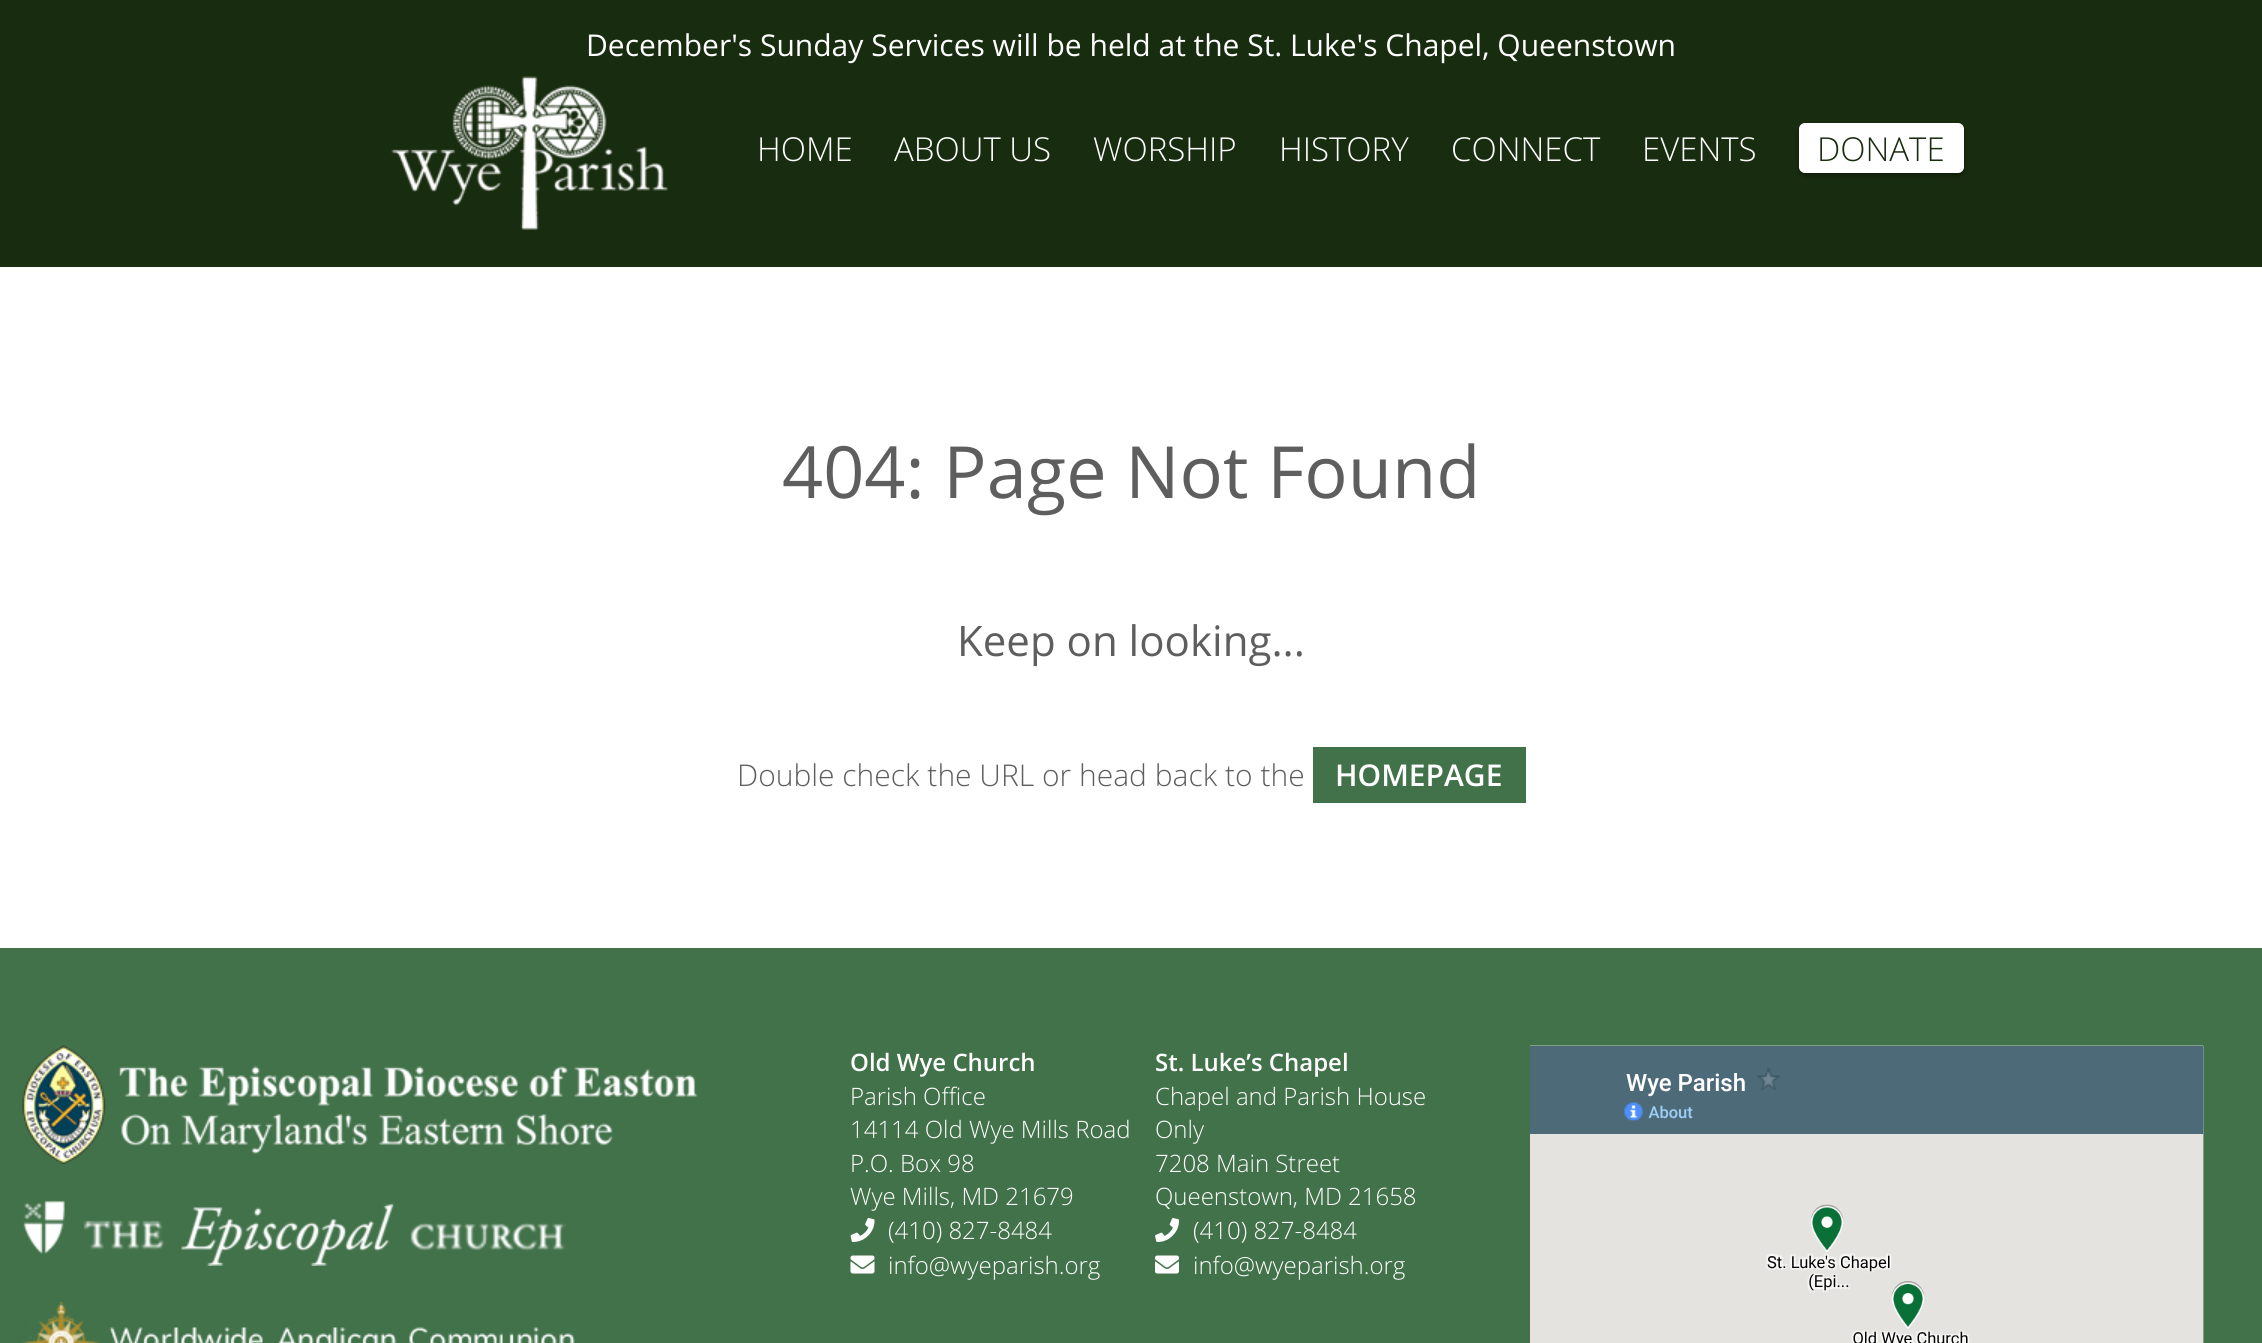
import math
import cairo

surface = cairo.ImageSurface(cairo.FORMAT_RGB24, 2262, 1343)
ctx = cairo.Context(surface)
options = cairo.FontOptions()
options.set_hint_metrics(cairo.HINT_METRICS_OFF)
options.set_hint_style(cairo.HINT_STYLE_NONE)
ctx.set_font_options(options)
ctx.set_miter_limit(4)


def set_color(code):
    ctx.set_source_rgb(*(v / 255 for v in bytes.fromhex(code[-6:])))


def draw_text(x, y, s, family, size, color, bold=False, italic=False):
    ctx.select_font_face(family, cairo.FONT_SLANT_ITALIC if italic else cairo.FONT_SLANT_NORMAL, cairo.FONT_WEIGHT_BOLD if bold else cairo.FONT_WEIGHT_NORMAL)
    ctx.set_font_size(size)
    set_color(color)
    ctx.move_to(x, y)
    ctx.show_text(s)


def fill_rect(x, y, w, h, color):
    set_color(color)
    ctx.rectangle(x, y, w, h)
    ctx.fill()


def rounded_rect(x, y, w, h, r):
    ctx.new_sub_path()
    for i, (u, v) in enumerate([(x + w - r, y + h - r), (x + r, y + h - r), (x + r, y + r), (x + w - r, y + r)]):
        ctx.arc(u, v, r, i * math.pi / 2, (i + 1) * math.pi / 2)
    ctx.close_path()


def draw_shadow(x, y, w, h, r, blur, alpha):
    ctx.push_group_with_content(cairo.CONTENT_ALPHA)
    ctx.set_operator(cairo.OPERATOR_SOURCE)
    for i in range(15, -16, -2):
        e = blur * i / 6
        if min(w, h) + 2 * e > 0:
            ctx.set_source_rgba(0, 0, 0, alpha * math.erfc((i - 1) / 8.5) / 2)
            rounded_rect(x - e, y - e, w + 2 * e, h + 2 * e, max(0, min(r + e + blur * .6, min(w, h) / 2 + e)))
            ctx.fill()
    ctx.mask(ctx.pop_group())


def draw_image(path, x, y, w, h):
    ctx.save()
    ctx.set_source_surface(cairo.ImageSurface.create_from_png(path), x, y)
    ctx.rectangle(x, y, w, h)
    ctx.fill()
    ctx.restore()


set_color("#ffffff")
ctx.paint()
fill_rect(0, 0, 2262, 267, "#182c0f")
draw_text(586, 56, "December's Sunday Services will be held at the St. Luke's Chapel, Queenstown", "Open Sans", 30, "#ffffff")
draw_image("assets/img1.png", 384, 68, 284, 162)
draw_text(757, 161, "HOME", "Open Sans Light", 33, "#ffffff")
draw_text(894, 161, "ABOUT US", "Open Sans Light", 33, "#ffffff")
draw_text(1093, 161, "WORSHIP", "Open Sans Light", 33, "#ffffff")
draw_text(1279, 161, "HISTORY", "Open Sans Light", 33, "#ffffff")
draw_text(1451, 161, "CONNECT", "Open Sans Light", 33, "#ffffff")
draw_text(1642, 161, "EVENTS", "Open Sans Light", 33, "#ffffff")
set_color("#000000")
draw_shadow(1799, 126, 165, 50, 6, 2, 0.35)
set_color("#ffffff")
rounded_rect(1799, 123, 165, 50, 6)
ctx.fill()
draw_text(1817, 161, "DONATE", "Open Sans Light", 33, "#182c0f")
draw_text(782, 498, "404: Page Not Found", "Open Sans", 72, "#5d5e5d")
draw_text(957, 656, "Keep on looking...", "Open Sans", 42, "#5d5e5d")
draw_text(737, 786, "Double check the URL or head back to the", "Open Sans Light", 30, "#5d5e5d")
fill_rect(1313, 747, 213, 56, "#42724a")
draw_text(1335, 786, "HOMEPAGE", "Open Sans SemiBold", 30, "#ffffff")
fill_rect(0, 948, 2262, 395, "#42724a")
draw_image("assets/img2.png", 22, 1045, 676, 119)
draw_image("assets/img3.png", 23, 1200, 543, 66)
draw_image("assets/img4.png", 22, 1302, 553, 41)
draw_text(850, 1071, "Old Wye Church", "Open Sans SemiBold", 24, "#ffffff")
draw_text(850, 1105, "Parish Office", "Open Sans Light", 24, "#ffffff")
draw_text(850, 1138, "14114 Old Wye Mills Road", "Open Sans Light", 24, "#ffffff")
draw_text(850, 1172, "P.O. Box 98", "Open Sans Light", 24, "#ffffff")
draw_text(850, 1205, "Wye Mills, MD 21679", "Open Sans Light", 24, "#ffffff")
draw_image("assets/img5.png", 850, 1218, 25, 24)
draw_text(888, 1239, "(410) 827-8484", "Open Sans Light", 24, "#ffffff")
draw_image("assets/img6.png", 850, 1255, 25, 19)
draw_text(888, 1274, "info@wyeparish.org", "Open Sans Light", 24, "#ffffff")
draw_text(1155, 1071, "St. Luke’s Chapel", "Open Sans SemiBold", 24, "#ffffff")
draw_text(1155, 1105, "Chapel and Parish House", "Open Sans Light", 24, "#ffffff")
draw_text(1155, 1138, "Only", "Open Sans Light", 24, "#ffffff")
draw_text(1155, 1172, "7208 Main Street", "Open Sans Light", 24, "#ffffff")
draw_text(1155, 1205, "Queenstown, MD 21658", "Open Sans Light", 24, "#ffffff")
draw_image("assets/img7.png", 1155, 1218, 25, 24)
draw_text(1193, 1239, "(410) 827-8484", "Open Sans Light", 24, "#ffffff")
draw_image("assets/img8.png", 1155, 1255, 24, 19)
draw_text(1193, 1274, "info@wyeparish.org", "Open Sans Light", 24, "#ffffff")
draw_image("assets/img9.png", 1530, 1045, 674, 298)
surface.write_to_png("output.png")
